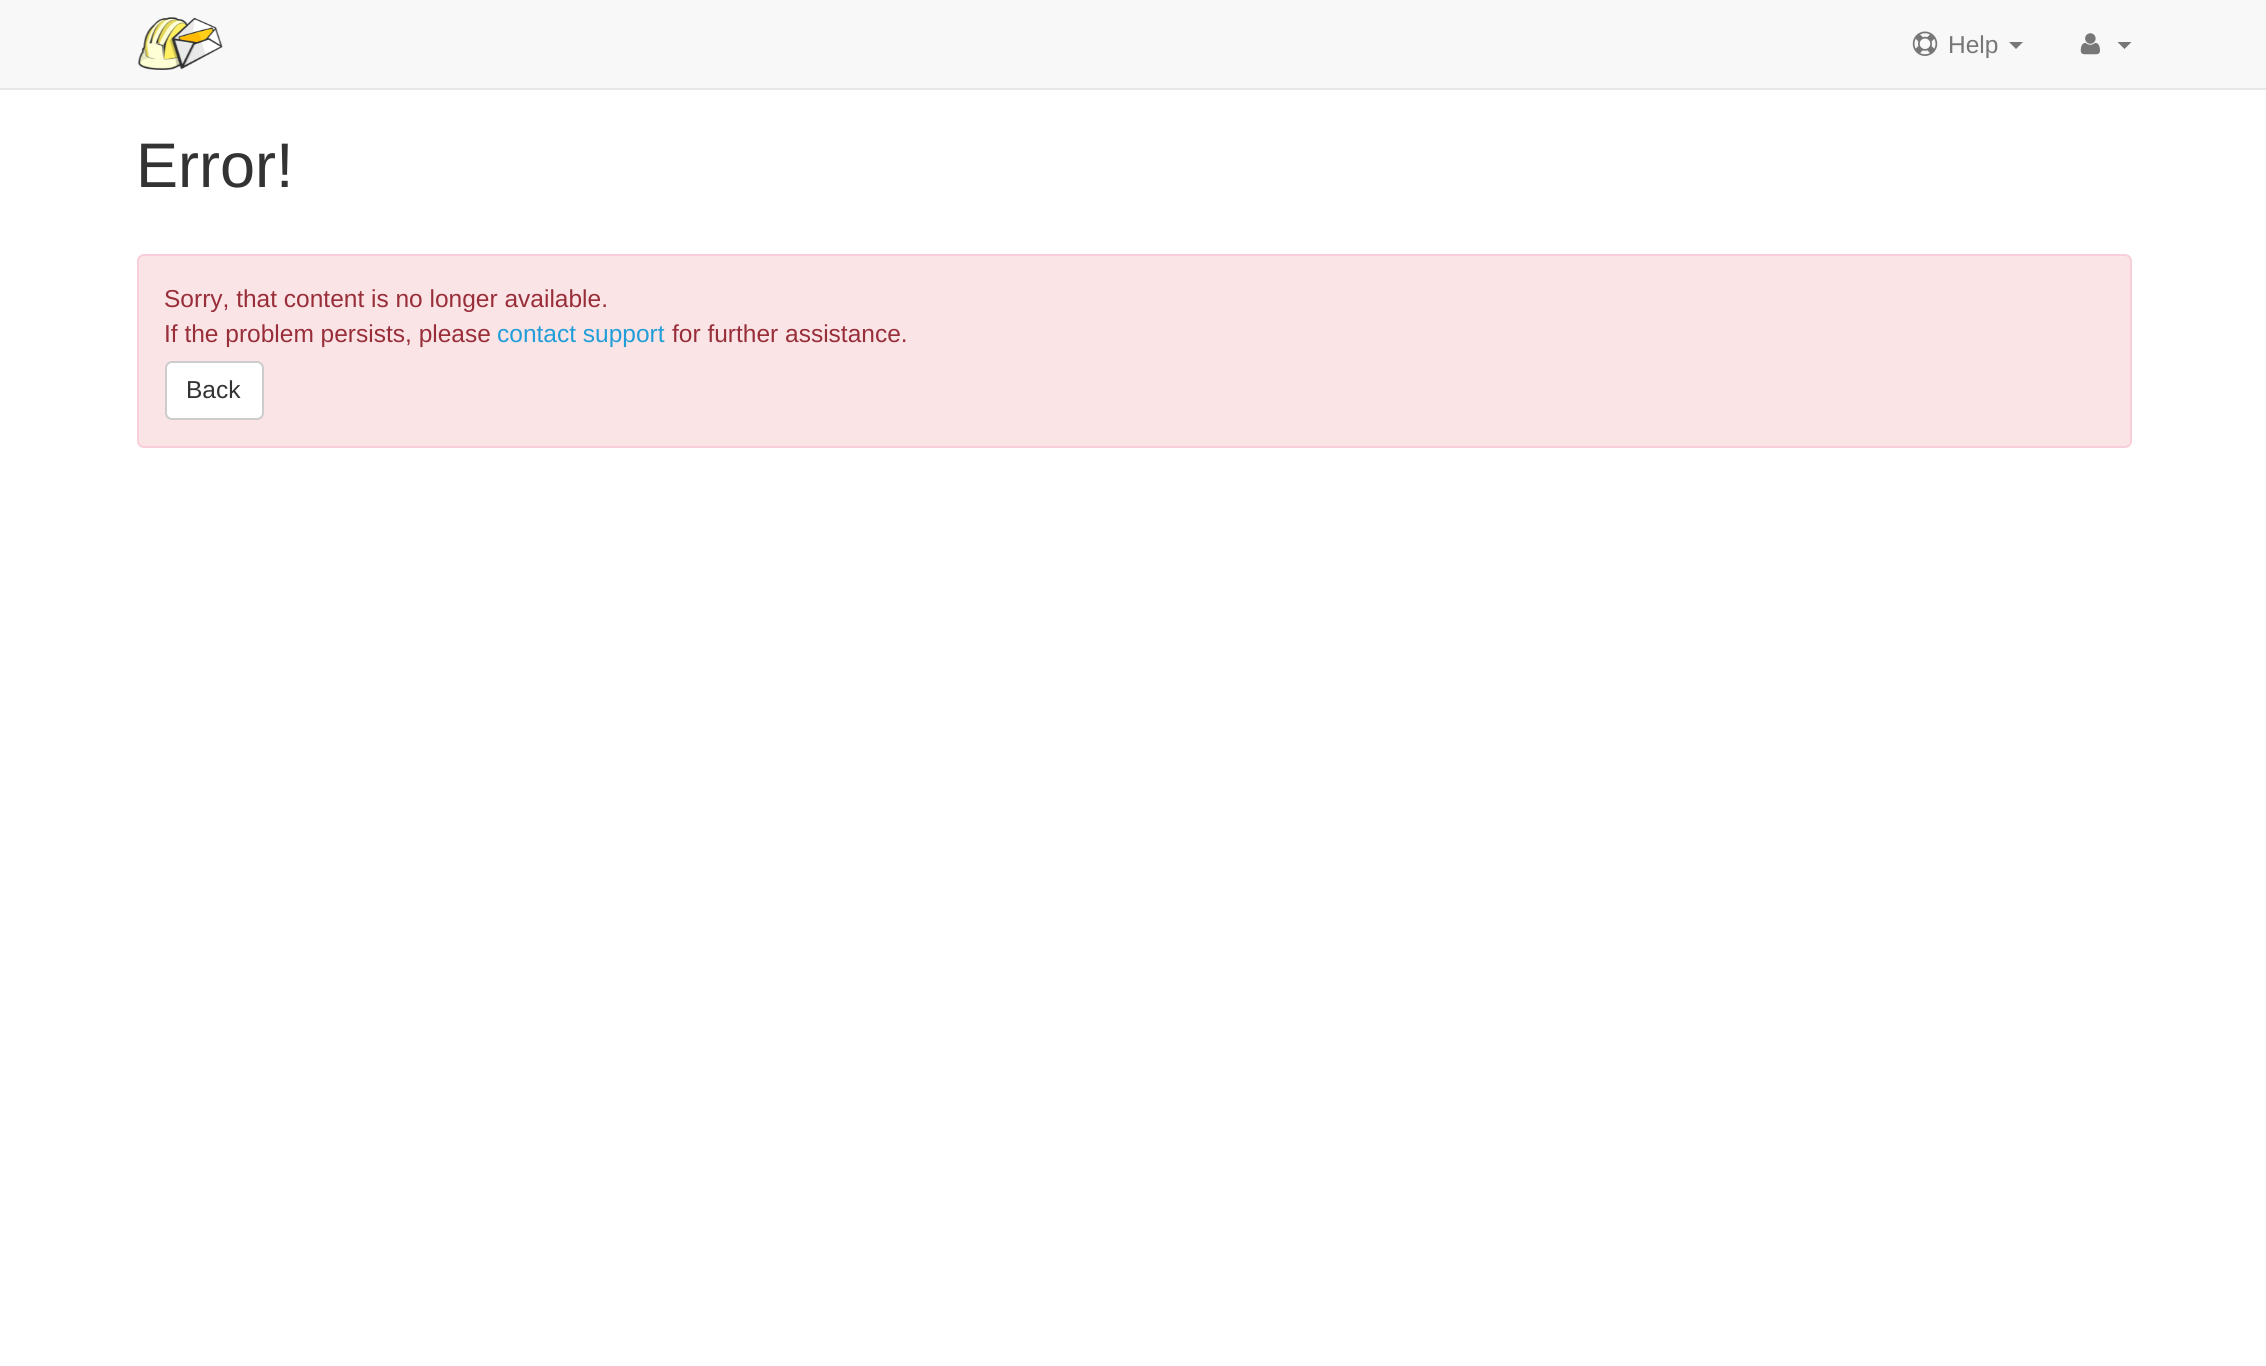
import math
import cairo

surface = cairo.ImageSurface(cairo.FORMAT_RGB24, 2266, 1366)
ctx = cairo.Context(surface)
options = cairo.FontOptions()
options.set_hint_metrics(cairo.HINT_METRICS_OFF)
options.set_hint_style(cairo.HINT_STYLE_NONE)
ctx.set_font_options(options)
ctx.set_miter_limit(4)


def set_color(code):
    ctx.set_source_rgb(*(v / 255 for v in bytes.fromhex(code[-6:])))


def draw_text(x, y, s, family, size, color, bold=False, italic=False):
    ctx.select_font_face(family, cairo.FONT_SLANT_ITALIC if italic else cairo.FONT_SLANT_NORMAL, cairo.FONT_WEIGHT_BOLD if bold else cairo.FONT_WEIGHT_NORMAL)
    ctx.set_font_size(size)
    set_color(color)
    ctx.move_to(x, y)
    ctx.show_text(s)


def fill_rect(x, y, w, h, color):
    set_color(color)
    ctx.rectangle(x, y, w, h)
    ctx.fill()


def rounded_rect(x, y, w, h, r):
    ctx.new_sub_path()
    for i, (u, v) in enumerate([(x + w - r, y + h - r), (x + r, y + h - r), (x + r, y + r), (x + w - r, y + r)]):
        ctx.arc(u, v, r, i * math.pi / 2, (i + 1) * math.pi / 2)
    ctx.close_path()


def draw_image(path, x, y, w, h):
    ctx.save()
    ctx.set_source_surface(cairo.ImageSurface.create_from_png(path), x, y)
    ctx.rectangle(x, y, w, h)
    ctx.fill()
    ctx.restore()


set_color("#ffffff")
ctx.paint()
fill_rect(0, 0, 2266, 88, "#f8f8f8")
fill_rect(0, 88, 2266, 2, "#e7e7e7")
draw_image("assets/img1.png", 137, 17, 86, 53)
draw_image("assets/img2.png", 1912, 31, 26, 25)
draw_text(1948, 53, "Help", "Liberation Sans", 24.5, "#777777")
ctx.new_path()
ctx.move_to(2009, 42)
ctx.line_to(2023, 42)
ctx.line_to(2016, 49)
ctx.close_path()
ctx.fill()
draw_image("assets/img3.png", 2080, 33, 20, 22)
ctx.new_path()
ctx.move_to(2117.5, 42)
ctx.line_to(2131.5, 42)
ctx.line_to(2124.5, 49)
ctx.close_path()
ctx.fill()
draw_text(136, 187, "Error!", "Liberation Sans", 63, "#333333")
set_color("#fbe4e6")
rounded_rect(138, 255, 1993, 192, 6)
ctx.fill_preserve()
set_color("#f7ced9")
ctx.stroke()
draw_text(164, 307, "Sorry, that content is no longer available.", "Liberation Sans", 24.5, "#982e39")
draw_text(164, 342, "If the problem persists, please", "Liberation Sans", 24.5, "#982e39")
draw_text(497, 342, "contact support", "Liberation Sans", 24.5, "#219ed8")
draw_text(672, 342, "for further assistance.", "Liberation Sans", 24.5, "#982e39")
set_color("#ffffff")
rounded_rect(166, 362, 97, 57, 6)
ctx.fill_preserve()
set_color("#cccccc")
ctx.stroke()
draw_text(186, 398, "Back", "Liberation Sans", 24.5, "#333333")
surface.write_to_png("output.png")
